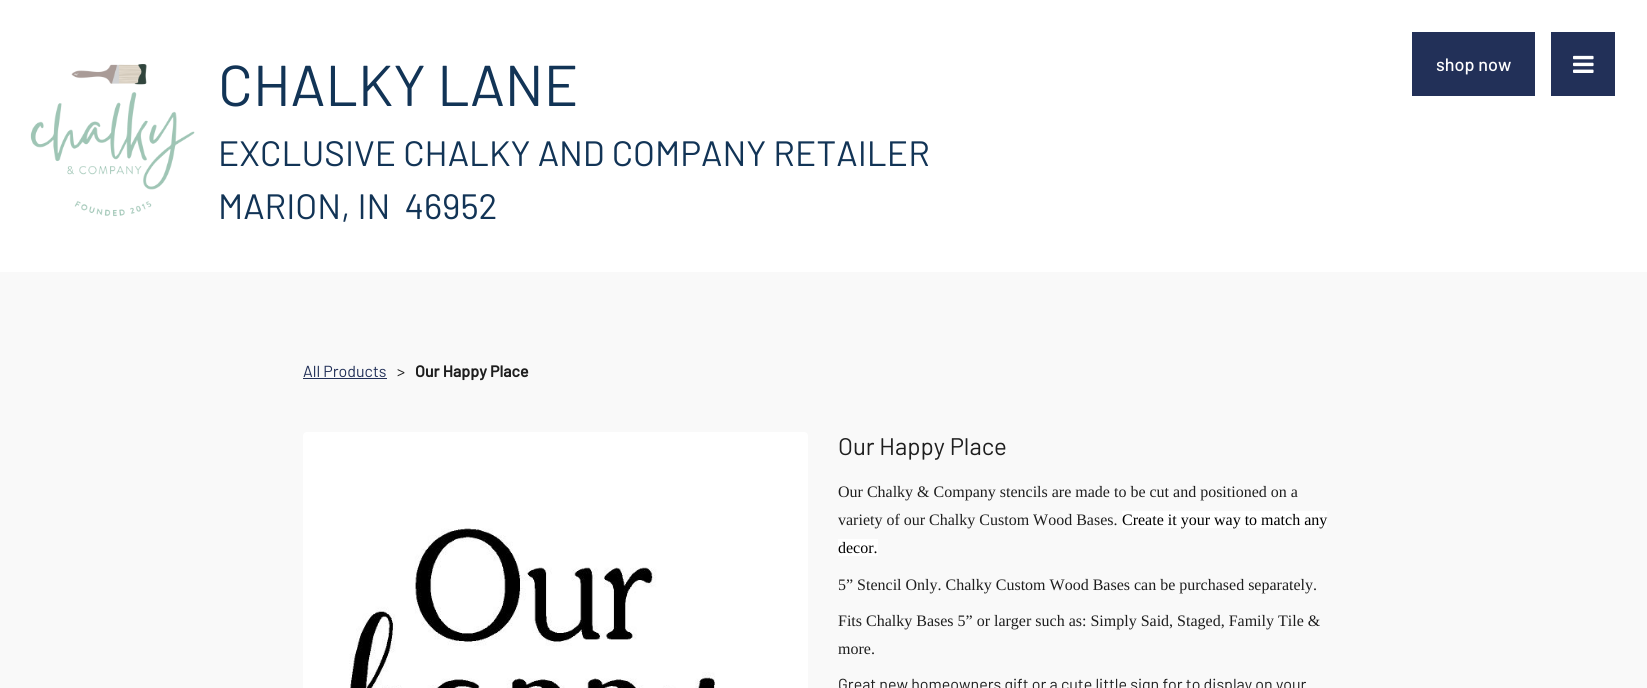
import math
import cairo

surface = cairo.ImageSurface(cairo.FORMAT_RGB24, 1647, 688)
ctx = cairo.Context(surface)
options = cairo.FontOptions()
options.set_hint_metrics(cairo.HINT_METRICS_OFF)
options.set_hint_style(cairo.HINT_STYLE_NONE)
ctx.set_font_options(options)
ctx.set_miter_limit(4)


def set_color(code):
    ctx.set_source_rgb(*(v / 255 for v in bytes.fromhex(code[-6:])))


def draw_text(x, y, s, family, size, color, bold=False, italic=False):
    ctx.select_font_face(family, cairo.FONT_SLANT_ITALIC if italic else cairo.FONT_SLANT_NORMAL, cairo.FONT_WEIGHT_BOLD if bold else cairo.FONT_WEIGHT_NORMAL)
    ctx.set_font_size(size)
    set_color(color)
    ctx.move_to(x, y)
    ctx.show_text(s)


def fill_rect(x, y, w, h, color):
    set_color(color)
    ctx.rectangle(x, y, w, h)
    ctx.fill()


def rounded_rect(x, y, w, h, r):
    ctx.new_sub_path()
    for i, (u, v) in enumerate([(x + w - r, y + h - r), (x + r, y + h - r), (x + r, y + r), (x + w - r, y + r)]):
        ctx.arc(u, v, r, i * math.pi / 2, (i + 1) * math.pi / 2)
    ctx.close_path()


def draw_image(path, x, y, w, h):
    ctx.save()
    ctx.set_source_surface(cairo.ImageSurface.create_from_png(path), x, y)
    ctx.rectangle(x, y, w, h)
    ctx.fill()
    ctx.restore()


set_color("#f9f9f9")
ctx.paint()
fill_rect(0, 0, 1647, 272, "#ffffff")
draw_image("assets/img1.png", 30, 64, 165, 153)
draw_text(218, 106, "CHALKY LANE", "Barlow", 57.5, "#123456")
draw_text(218, 166, "EXCLUSIVE CHALKY AND COMPANY RETAILER", "Barlow", 35.25, "#123456")
draw_text(218, 219, "MARION, IN  46952", "Barlow", 35.25, "#123456")
fill_rect(1412, 32, 123, 64, "#223058")
draw_text(1436, 71, "shop now", "Barlow Medium", 18, "#ffffff")
fill_rect(1551, 32, 64, 64, "#223058")
draw_image("assets/img2.png", 1573, 55, 21, 18)
draw_text(303, 377, "All Products", "Barlow", 16, "#223058")
fill_rect(303, 378, 84, 1, "#223058")
draw_text(397, 377, ">", "Barlow", 16, "#1e1e1e")
draw_text(415, 377, "Our Happy Place", "Barlow", 16, "#1e1e1e", bold=True)
set_color("#ffffff")
rounded_rect(303, 432, 505, 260, 4)
ctx.fill()
draw_image("assets/img3.png", 349, 528, 366, 160)
draw_text(838, 455, "Our Happy Place", "Barlow", 24, "#1e1e1e")
draw_text(838, 497, "Our Chalky & Company stencils are made to be cut and positioned on a", "Liberation Serif", 16, "#1e1e1e")
draw_text(838, 525, "variety of our Chalky Custom Wood Bases.", "Liberation Serif", 16, "#1e1e1e")
fill_rect(1122, 511, 205, 17, "#ffffff")
draw_text(1122, 525, "Create it your way to match any", "Liberation Serif", 16, "#000000")
fill_rect(838, 539, 40, 17, "#ffffff")
draw_text(838, 553, "decor.", "Liberation Serif", 16, "#000000")
draw_text(838, 590, "5” Stencil Only. Chalky Custom Wood Bases can be purchased separately.", "Liberation Serif", 16, "#1e1e1e")
draw_text(838, 626, "Fits Chalky Bases 5” or larger such as: Simply Said, Staged, Family Tile &", "Liberation Serif", 16, "#1e1e1e")
draw_text(838, 654, "more.", "Liberation Serif", 16, "#1e1e1e")
draw_text(838, 690, "Great new homeowners gift or a cute little sign for to display on your", "Barlow", 16, "#1e1e1e")
surface.write_to_png("output.png")
